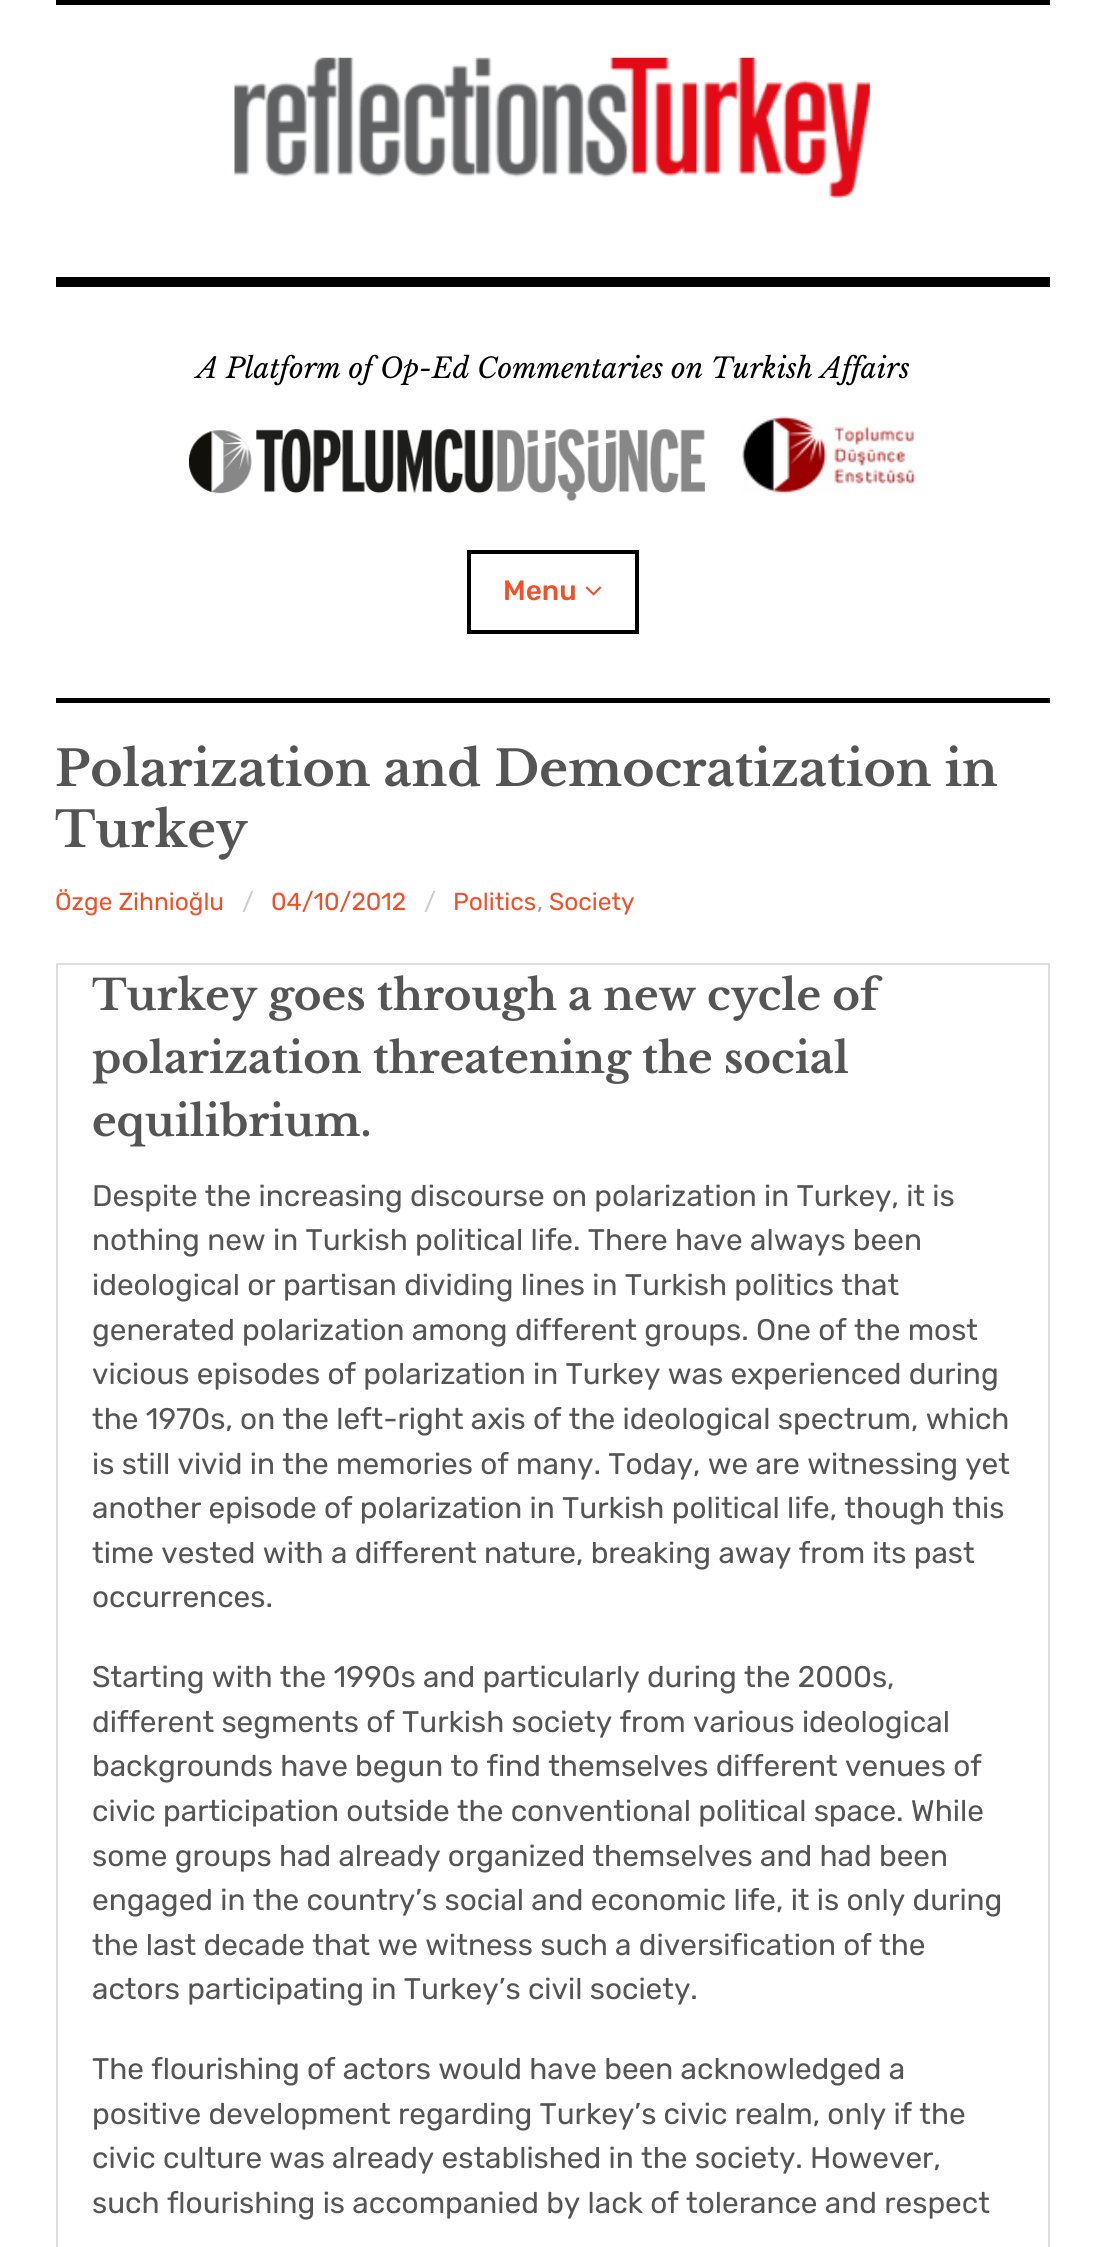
import math
import cairo

surface = cairo.ImageSurface(cairo.FORMAT_RGB24, 1105, 2247)
ctx = cairo.Context(surface)
options = cairo.FontOptions()
options.set_hint_metrics(cairo.HINT_METRICS_OFF)
options.set_hint_style(cairo.HINT_STYLE_NONE)
ctx.set_font_options(options)
ctx.set_miter_limit(4)


def set_color(code):
    ctx.set_source_rgb(*(v / 255 for v in bytes.fromhex(code[-6:])))


def draw_text(x, y, s, family, size, color, bold=False, italic=False):
    ctx.select_font_face(family, cairo.FONT_SLANT_ITALIC if italic else cairo.FONT_SLANT_NORMAL, cairo.FONT_WEIGHT_BOLD if bold else cairo.FONT_WEIGHT_NORMAL)
    ctx.set_font_size(size)
    set_color(color)
    ctx.move_to(x, y)
    ctx.show_text(s)


def fill_rect(x, y, w, h, color):
    set_color(color)
    ctx.rectangle(x, y, w, h)
    ctx.fill()


def draw_image(path, x, y, w, h):
    ctx.save()
    ctx.set_source_surface(cairo.ImageSurface.create_from_png(path), x, y)
    ctx.rectangle(x, y, w, h)
    ctx.fill()
    ctx.restore()


set_color("#ffffff")
ctx.paint()
fill_rect(56, 0, 994, 5, "#000000")
fill_rect(56, 277, 994, 10, "#000000")
draw_image("assets/img1.png", 234, 57, 636, 141)
draw_text(197, 378, "A Platform of Op-Ed Commentaries on Turkish Affairs", "Libre Baskerville", 28, "#000000", italic=True)
draw_image("assets/img2.png", 189, 429, 516, 72)
draw_image("assets/img3.png", 742, 416, 174, 78)
ctx.rectangle(469, 552, 168, 80)
ctx.set_line_width(4)
ctx.stroke()
draw_text(503, 600, "Menu", "Rubik Medium", 28, "#f35029")
draw_image("assets/img4.png", 585, 586, 17, 10)
fill_rect(56, 698, 994, 5, "#000000")
draw_text(55, 786, "Polarization and Democratization in", "Libre Baskerville", 49, "#555555", bold=True)
draw_text(55, 847, "Turkey", "Libre Baskerville", 49, "#555555", bold=True)
draw_text(55, 910, "Özge Zihnioğlu", "Rubik", 24.5, "#f35029")
draw_text(242, 910, "/", "Rubik", 24.5, "#cccccc")
draw_text(271, 910, "04/10/2012", "Rubik", 24.5, "#f35029")
draw_text(424, 910, "/", "Rubik", 24.5, "#cccccc")
draw_text(453, 910, "Politics", "Rubik", 24.5, "#f35029")
draw_text(537, 910, ",", "Rubik", 24.5, "#999999")
draw_text(549, 910, "Society", "Rubik", 24.5, "#f35029")
ctx.rectangle(57, 964, 992, 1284)
set_color("#dddddd")
ctx.set_line_width(2)
ctx.stroke()
draw_text(92, 1010, "Turkey goes through a new cycle of", "Libre Baskerville", 42, "#555555", bold=True)
draw_text(92, 1073, "polarization threatening the social", "Libre Baskerville", 42, "#555555", bold=True)
draw_text(92, 1136, "equilibrium.", "Libre Baskerville", 42, "#555555", bold=True)
draw_text(92, 1206, "Despite the increasing discourse on polarization in Turkey, it is", "Rubik", 29.75, "#555555")
draw_text(92, 1250, "nothing new in Turkish political life. There have always been", "Rubik", 29.75, "#555555")
draw_text(92, 1295, "ideological or partisan dividing lines in Turkish politics that", "Rubik", 29.75, "#555555")
draw_text(92, 1340, "generated polarization among different groups. One of the most", "Rubik", 29.75, "#555555")
draw_text(92, 1384, "vicious episodes of polarization in Turkey was experienced during", "Rubik", 29.75, "#555555")
draw_text(92, 1429, "the 1970s, on the left-right axis of the ideological spectrum, which", "Rubik", 29.75, "#555555")
draw_text(92, 1474, "is still vivid in the memories of many. Today, we are witnessing yet", "Rubik", 29.75, "#555555")
draw_text(92, 1518, "another episode of polarization in Turkish political life, though this", "Rubik", 29.75, "#555555")
draw_text(92, 1563, "time vested with a different nature, breaking away from its past", "Rubik", 29.75, "#555555")
draw_text(92, 1607, "occurrences.", "Rubik", 29.75, "#555555")
draw_text(92, 1687, "Starting with the 1990s and particularly during the 2000s,", "Rubik", 29.75, "#555555")
draw_text(92, 1732, "different segments of Turkish society from various ideological", "Rubik", 29.75, "#555555")
draw_text(92, 1776, "backgrounds have begun to find themselves different venues of", "Rubik", 29.75, "#555555")
draw_text(92, 1821, "civic participation outside the conventional political space. While", "Rubik", 29.75, "#555555")
draw_text(92, 1866, "some groups had already organized themselves and had been", "Rubik", 29.75, "#555555")
draw_text(92, 1910, "engaged in the country’s social and economic life, it is only during", "Rubik", 29.75, "#555555")
draw_text(92, 1955, "the last decade that we witness such a diversification of the", "Rubik", 29.75, "#555555")
draw_text(92, 1999, "actors participating in Turkey’s civil society.", "Rubik", 29.75, "#555555")
draw_text(92, 2079, "The flourishing of actors would have been acknowledged a", "Rubik", 29.75, "#555555")
draw_text(92, 2124, "positive development regarding Turkey’s civic realm, only if the", "Rubik", 29.75, "#555555")
draw_text(92, 2168, "civic culture was already established in the society. However,", "Rubik", 29.75, "#555555")
draw_text(92, 2213, "such flourishing is accompanied by lack of tolerance and respect", "Rubik", 29.75, "#555555")
surface.write_to_png("output.png")
